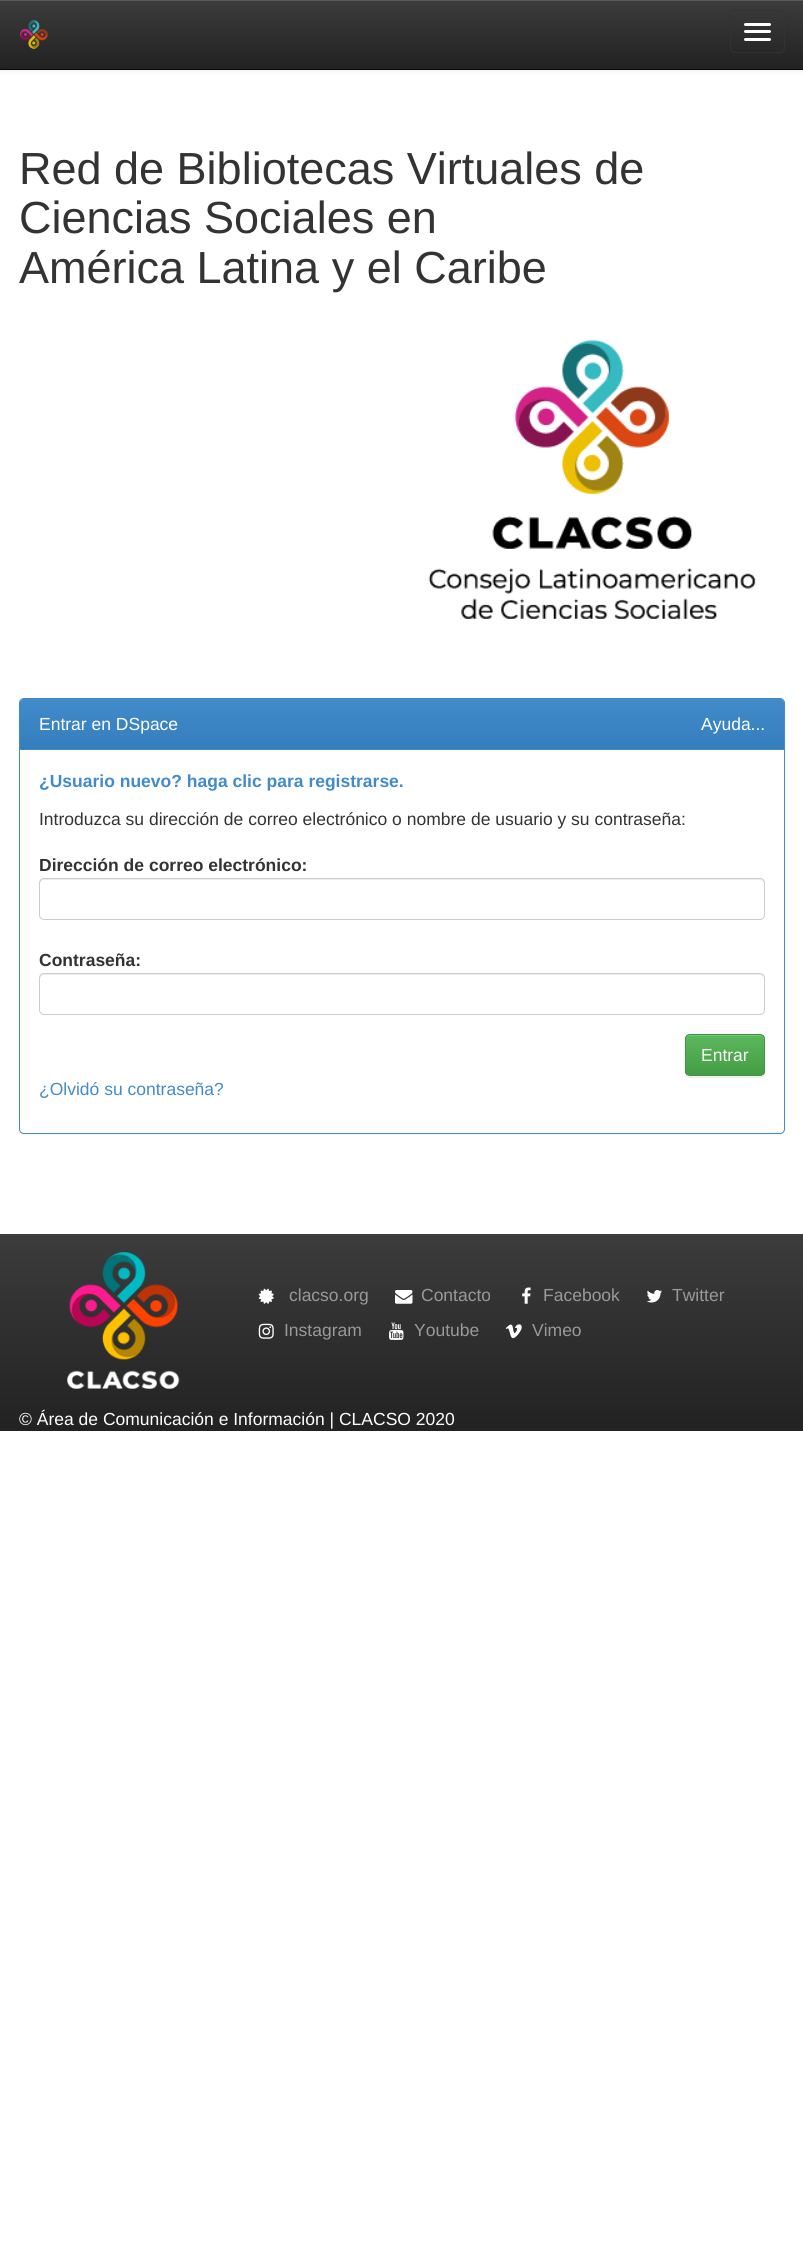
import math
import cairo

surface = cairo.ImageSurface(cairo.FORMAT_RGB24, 803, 2252)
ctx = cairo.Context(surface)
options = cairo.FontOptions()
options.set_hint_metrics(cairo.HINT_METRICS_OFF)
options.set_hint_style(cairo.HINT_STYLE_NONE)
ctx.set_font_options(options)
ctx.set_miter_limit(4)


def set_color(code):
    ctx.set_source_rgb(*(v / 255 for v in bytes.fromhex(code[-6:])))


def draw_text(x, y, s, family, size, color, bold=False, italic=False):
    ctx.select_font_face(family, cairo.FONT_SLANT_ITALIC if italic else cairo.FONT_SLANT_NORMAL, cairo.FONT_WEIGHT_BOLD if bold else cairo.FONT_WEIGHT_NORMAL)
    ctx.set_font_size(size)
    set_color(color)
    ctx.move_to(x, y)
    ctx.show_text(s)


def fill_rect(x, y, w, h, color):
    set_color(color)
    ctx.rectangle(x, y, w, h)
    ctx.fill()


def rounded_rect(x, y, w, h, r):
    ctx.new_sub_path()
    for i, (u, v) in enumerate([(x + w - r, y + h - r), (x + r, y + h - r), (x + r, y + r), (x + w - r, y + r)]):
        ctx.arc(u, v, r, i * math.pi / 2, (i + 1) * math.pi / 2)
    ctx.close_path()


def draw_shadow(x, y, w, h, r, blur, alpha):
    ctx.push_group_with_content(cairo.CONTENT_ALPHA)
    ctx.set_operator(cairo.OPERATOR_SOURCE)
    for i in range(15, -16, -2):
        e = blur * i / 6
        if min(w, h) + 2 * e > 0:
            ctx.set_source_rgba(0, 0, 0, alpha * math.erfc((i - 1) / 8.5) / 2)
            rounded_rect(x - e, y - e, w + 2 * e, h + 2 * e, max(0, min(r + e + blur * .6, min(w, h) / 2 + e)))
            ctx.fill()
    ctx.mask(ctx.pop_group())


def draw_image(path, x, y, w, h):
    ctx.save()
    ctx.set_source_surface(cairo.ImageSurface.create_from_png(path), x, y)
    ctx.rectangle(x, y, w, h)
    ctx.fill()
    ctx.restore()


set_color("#ffffff")
ctx.paint()
set_color("#000000")
draw_shadow(0, 1, 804, 70, 0, 3, 0.07)
gradient = cairo.LinearGradient(402, 0, 402, 69)
gradient.add_color_stop_rgba(0, 0.235, 0.235, 0.235, 1)
gradient.add_color_stop_rgba(1, 0.133, 0.133, 0.133, 1)
ctx.set_source(gradient)
ctx.rectangle(0, 1, 803, 68)
ctx.fill()
fill_rect(0, 0, 803, 1, "#595959")
fill_rect(0, 69, 803, 1, "#080808")
draw_image("assets/img1.png", 20, 20, 28, 29)
rounded_rect(730.5, 10.5, 54, 42, 4.5)
set_color("#333333")
ctx.set_line_width(1)
ctx.stroke()
set_color("#ffffff")
rounded_rect(744, 23, 27, 3, 1.5)
ctx.fill()
rounded_rect(744, 30, 27, 3, 1.5)
ctx.fill()
rounded_rect(744, 38, 27, 3, 1.5)
ctx.fill()
draw_text(19, 184, "Red de Bibliotecas Virtuales de", "Liberation Sans", 45, "#333333")
draw_text(19, 233, "Ciencias Sociales en", "Liberation Sans", 45, "#333333")
draw_text(19, 283, "América Latina y el Caribe", "Liberation Sans", 45, "#333333")
draw_image("assets/img2.png", 428, 339, 328, 280)
set_color("#000000")
draw_shadow(19, 699, 766, 436, 5, 1, 0.05)
set_color("#ffffff")
rounded_rect(19.5, 698.5, 765, 435, 4.5)
ctx.fill_preserve()
set_color("#428bca")
ctx.stroke()
ctx.new_path()
ctx.move_to(24, 699)
ctx.line_to(780, 699)
ctx.curve_to(782, 699, 784, 701, 784, 703)
ctx.line_to(784, 750)
ctx.line_to(20, 750)
ctx.line_to(20, 703)
ctx.curve_to(20, 701, 22, 699, 24, 699)
ctx.close_path()
ctx.fill()
gradient = cairo.LinearGradient(402, 699, 402, 749)
gradient.add_color_stop_rgba(0, 0.259, 0.545, 0.792, 1)
gradient.add_color_stop_rgba(1, 0.208, 0.494, 0.741, 1)
ctx.set_source(gradient)
ctx.new_path()
ctx.move_to(24, 699)
ctx.line_to(780, 699)
ctx.curve_to(782, 699, 784, 701, 784, 703)
ctx.line_to(784, 749)
ctx.line_to(20, 749)
ctx.line_to(20, 703)
ctx.curve_to(20, 701, 22, 699, 24, 699)
ctx.close_path()
ctx.fill()
draw_text(39, 730, "Entrar en DSpace", "Liberation Sans", 17.5, "#ffffff")
draw_text(701, 730, "Ayuda...", "Liberation Sans", 17.5, "#ffffff")
draw_text(39, 787, "¿Usuario nuevo? haga clic para registrarse.", "Liberation Sans", 17.5, "#428bca", bold=True)
draw_text(39, 825, "Introduzca su dirección de correo electrónico o nombre de usuario y su contraseña:", "Liberation Sans", 17.5, "#333333")
draw_text(39, 871, "Dirección de correo electrónico:", "Liberation Sans", 17.5, "#333333", bold=True)
set_color("#ececec")
ctx.new_path()
ctx.move_to(44, 880)
ctx.line_to(760, 880)
ctx.curve_to(762, 880, 764, 882, 764, 884)
ctx.curve_to(764, 881, 763, 879, 760, 879)
ctx.line_to(44, 879)
ctx.line_to(41, 880)
ctx.line_to(40, 881)
ctx.line_to(40, 884)
ctx.curve_to(40, 882, 42, 880, 44, 880)
ctx.close_path()
ctx.fill()
rounded_rect(39.5, 878.5, 725, 41, 4.5)
set_color("#cccccc")
ctx.stroke()
draw_text(39, 966, "Contraseña:", "Liberation Sans", 17.5, "#333333", bold=True)
set_color("#ececec")
ctx.new_path()
ctx.move_to(44, 975)
ctx.line_to(760, 975)
ctx.curve_to(762, 975, 764, 977, 764, 979)
ctx.curve_to(764, 976, 763, 974, 760, 974)
ctx.line_to(44, 974)
ctx.line_to(41, 975)
ctx.line_to(40, 976)
ctx.line_to(40, 979)
ctx.curve_to(40, 977, 42, 975, 44, 975)
ctx.close_path()
ctx.fill()
rounded_rect(39.5, 973.5, 725, 41, 4.5)
set_color("#cccccc")
ctx.stroke()
set_color("#000000")
draw_shadow(685, 1035, 80, 43, 5, 0.5, 0.07)
ctx.save()
rounded_rect(685, 1034, 80, 42, 5)
ctx.clip()
gradient = cairo.LinearGradient(725, 1035, 725, 1075)
gradient.add_color_stop_rgba(0, 0.361, 0.722, 0.361, 1)
gradient.add_color_stop_rgba(1, 0.267, 0.616, 0.267, 1)
ctx.set_source(gradient)
ctx.rectangle(685, 1035, 80, 40)
ctx.fill()
ctx.restore()
set_color("#74c374")
ctx.new_path()
ctx.move_to(690, 1036)
ctx.line_to(760, 1036)
ctx.curve_to(762, 1036, 764, 1038, 764, 1040)
ctx.curve_to(764, 1032, 753, 1035, 748, 1035)
ctx.line_to(702, 1035)
ctx.curve_to(697, 1035, 686, 1032, 686, 1040)
ctx.curve_to(686, 1038, 688, 1036, 690, 1036)
ctx.close_path()
ctx.fill()
rounded_rect(685.5, 1034.5, 79, 41, 4.5)
set_color("#419641")
ctx.stroke()
draw_text(701, 1061, "Entrar", "Liberation Sans", 17.5, "#ffffff")
draw_text(39, 1095, "¿Olvidó su contraseña?", "Liberation Sans", 17.5, "#428bca")
gradient = cairo.LinearGradient(402, 1234, 402, 1431)
gradient.add_color_stop_rgba(0, 0.235, 0.235, 0.235, 1)
gradient.add_color_stop_rgba(1, 0.133, 0.133, 0.133, 1)
ctx.set_source(gradient)
ctx.rectangle(0, 1234, 803, 197)
ctx.fill()
draw_image("assets/img3.png", 67, 1252, 113, 137)
draw_image("assets/img4.png", 258, 1288, 16, 16)
draw_text(289, 1301, "clacso.org", "Liberation Sans", 17.5, "#999999")
draw_image("assets/img5.png", 395, 1290, 18, 14)
draw_text(421, 1301, "Contacto", "Liberation Sans", 17.5, "#999999")
draw_image("assets/img6.png", 522, 1287, 9, 17)
draw_text(543, 1301, "Facebook", "Liberation Sans", 17.5, "#999999")
draw_image("assets/img7.png", 646, 1290, 16, 13)
draw_text(672, 1301, "Twitter", "Liberation Sans", 17.5, "#999999")
draw_image("assets/img8.png", 258, 1323, 16, 16)
draw_text(284, 1336, "Instagram", "Liberation Sans", 17.5, "#999999")
draw_image("assets/img9.png", 389, 1322, 15, 18)
draw_text(414, 1336, "Youtube", "Liberation Sans", 17.5, "#999999")
draw_image("assets/img10.png", 505, 1324, 17, 15)
draw_text(532, 1336, "Vimeo", "Liberation Sans", 17.5, "#999999")
draw_text(19, 1425, "© Área de Comunicación e Información | CLACSO 2020", "Liberation Sans", 17.5, "#ffffff")
surface.write_to_png("output.png")
